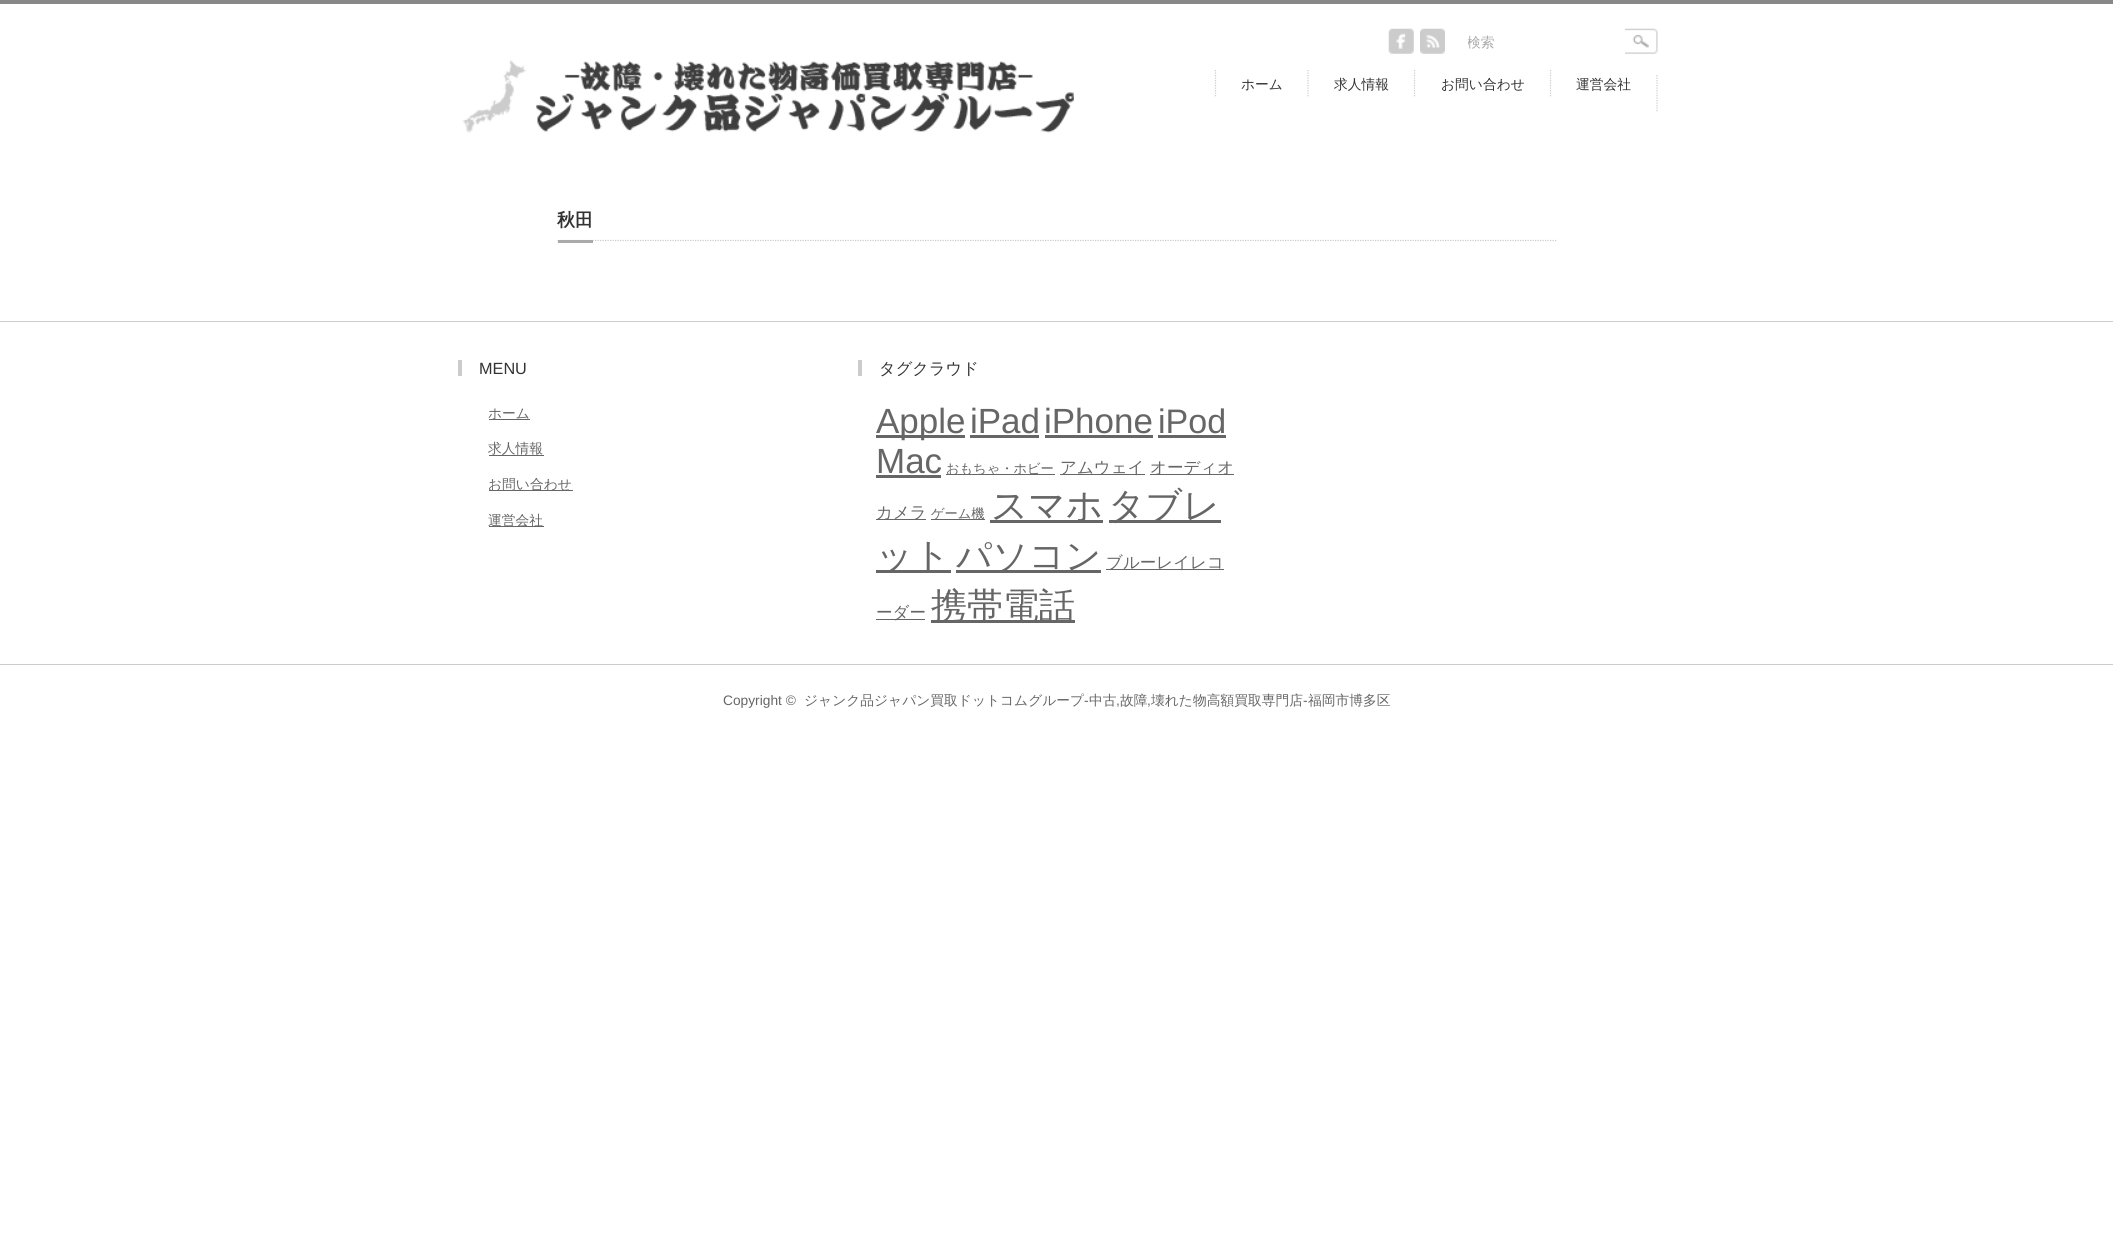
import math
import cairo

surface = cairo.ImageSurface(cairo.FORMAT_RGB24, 2113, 1246)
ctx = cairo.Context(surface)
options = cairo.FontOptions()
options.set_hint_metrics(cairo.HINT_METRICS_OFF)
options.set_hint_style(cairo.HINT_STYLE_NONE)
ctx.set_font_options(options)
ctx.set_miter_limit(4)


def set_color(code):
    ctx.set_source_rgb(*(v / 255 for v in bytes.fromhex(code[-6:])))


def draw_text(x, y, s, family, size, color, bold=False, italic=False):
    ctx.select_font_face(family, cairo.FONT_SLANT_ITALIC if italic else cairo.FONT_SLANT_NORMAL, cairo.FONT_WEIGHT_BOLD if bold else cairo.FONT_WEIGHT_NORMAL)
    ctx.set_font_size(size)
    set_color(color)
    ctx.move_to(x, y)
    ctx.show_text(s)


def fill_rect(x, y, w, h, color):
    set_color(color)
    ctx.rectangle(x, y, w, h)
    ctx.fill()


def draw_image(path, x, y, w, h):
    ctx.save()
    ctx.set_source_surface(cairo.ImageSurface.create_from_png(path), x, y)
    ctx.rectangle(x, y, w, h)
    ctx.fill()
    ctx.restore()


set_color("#ffffff")
ctx.paint()
fill_rect(0, 0, 2113, 4, "#888888")
draw_image("assets/img1.png", 1388, 28, 26, 26)
draw_image("assets/img2.png", 1420, 28, 25, 26)
ctx.save()
ctx.rectangle(1468, 35, 143, 15)
ctx.clip()
draw_text(1467, 47, "検索", "WenQuanYi Zen Hei Medium", 13.75, "#aaaaaa")
ctx.restore()
draw_image("assets/img3.png", 1625, 28, 33, 26)
draw_image("assets/img4.png", 462, 60, 612, 73)
ctx.new_path()
ctx.move_to(1657, 75)
ctx.line_to(1657, 112.5)
set_color("#cccccc")
ctx.set_line_width(1.2)
ctx.set_dash([1.25, 1.25])
ctx.stroke()
draw_text(1241, 89, "ホーム", "WenQuanYi Zen Hei Medium", 13.75, "#333333")
ctx.new_path()
ctx.move_to(1215.5, 70)
ctx.line_to(1215.5, 97.5)
set_color("#cccccc")
ctx.stroke()
draw_text(1334, 89, "求人情報", "WenQuanYi Zen Hei Medium", 13.75, "#333333")
ctx.new_path()
ctx.move_to(1308, 70)
ctx.line_to(1308, 97.5)
set_color("#cccccc")
ctx.stroke()
draw_text(1441, 89, "お問い合わせ", "WenQuanYi Zen Hei Medium", 13.75, "#333333")
ctx.new_path()
ctx.move_to(1414.5, 70)
ctx.line_to(1414.5, 97.5)
set_color("#cccccc")
ctx.stroke()
draw_text(1576, 89, "運営会社", "WenQuanYi Zen Hei Medium", 13.75, "#333333")
ctx.new_path()
ctx.move_to(1550.5, 70)
ctx.line_to(1550.5, 97.5)
set_color("#cccccc")
ctx.stroke()
ctx.new_path()
ctx.move_to(557.5, 240.5)
ctx.line_to(1557.5, 240.5)
ctx.stroke()
fill_rect(558, 240, 35, 3, "#aaaaaa")
draw_text(557, 226, "秋田", "WenQuanYi Zen Hei", 18, "#333333", bold=True)
fill_rect(0, 321, 2113, 1, "#cccccc")
fill_rect(458, 360, 4, 16, "#cccccc")
draw_text(479, 374, "MENU", "Liberation Sans", 16.25, "#333333")
fill_rect(489, 419, 41, 1, "#666666")
draw_text(488, 418, "ホーム", "WenQuanYi Zen Hei Medium", 13.75, "#666666")
fill_rect(489, 455, 55, 1, "#666666")
draw_text(488, 453, "求人情報", "WenQuanYi Zen Hei Medium", 13.75, "#666666")
fill_rect(489, 490, 84, 1, "#666666")
draw_text(488, 489, "お問い合わせ", "WenQuanYi Zen Hei Medium", 13.75, "#666666")
fill_rect(489, 526, 55, 1, "#666666")
draw_text(488, 525, "運営会社", "WenQuanYi Zen Hei Medium", 13.75, "#666666")
fill_rect(858, 360, 4, 16, "#cccccc")
draw_text(879, 374, "タグクラウド", "WenQuanYi Zen Hei Medium", 16.25, "#333333")
fill_rect(876, 435, 89, 3, "#666666")
draw_text(876, 433, "Apple", "Liberation Sans", 35, "#666666")
draw_text(970, 433, "iPad", "Liberation Sans", 35, "#666666")
fill_rect(970, 435, 69, 3, "#666666")
draw_text(1044, 433, "iPhone", "Liberation Sans", 35, "#666666")
fill_rect(1045, 435, 108, 3, "#666666")
draw_text(1158, 433, "iPod", "Liberation Sans", 34, "#666666")
fill_rect(1158, 435, 68, 3, "#666666")
draw_text(876, 473, "Mac", "Liberation Sans", 35, "#666666")
fill_rect(876, 475, 65, 3, "#666666")
fill_rect(946, 474, 109, 1, "#666666")
draw_text(946, 473, "おもちゃ・ホビー", "WenQuanYi Zen Hei Medium", 13.25, "#666666")
fill_rect(1060, 474, 85, 1, "#666666")
draw_text(1060, 473, "アムウェイ", "WenQuanYi Zen Hei Medium", 16.5, "#666666")
fill_rect(1150, 474, 84, 1, "#666666")
draw_text(1150, 473, "オーディオ", "WenQuanYi Zen Hei Medium", 16.5, "#666666")
fill_rect(876, 519, 50, 1, "#666666")
draw_text(876, 518, "カメラ", "WenQuanYi Zen Hei Medium", 16.5, "#666666")
fill_rect(931, 519, 54, 1, "#666666")
draw_text(931, 518, "ゲーム機", "WenQuanYi Zen Hei Medium", 13.25, "#666666")
fill_rect(990, 520, 113, 3, "#666666")
draw_text(991, 518, "スマホ", "WenQuanYi Zen Hei Medium", 36.5, "#666666")
fill_rect(1109, 520, 112, 3, "#666666")
draw_text(1108, 518, "タブレ", "WenQuanYi Zen Hei Medium", 36.5, "#666666")
fill_rect(876, 570, 75, 3, "#666666")
draw_text(876, 568, "ット", "WenQuanYi Zen Hei Medium", 36.5, "#666666")
fill_rect(956, 570, 145, 3, "#666666")
draw_text(956, 568, "パソコン", "WenQuanYi Zen Hei Medium", 35.5, "#666666")
fill_rect(1106, 569, 118, 1, "#666666")
draw_text(1106, 568, "ブルーレイレコ", "WenQuanYi Zen Hei Medium", 16.5, "#666666")
fill_rect(876, 619, 49, 1, "#666666")
draw_text(876, 618, "ーダー", "WenQuanYi Zen Hei Medium", 16.5, "#666666")
fill_rect(931, 620, 144, 3, "#666666")
draw_text(931, 618, "携帯電話", "WenQuanYi Zen Hei Medium", 36, "#666666")
fill_rect(0, 664, 2113, 1, "#cccccc")
draw_text(723, 705, "Copyright ©", "Liberation Sans", 13.75, "#666666")
draw_text(804, 705, "ジャンク品ジャパン買取ドットコムグループ", "WenQuanYi Zen Hei Medium", 13.75, "#666666")
draw_text(1084, 705, "-", "Liberation Sans", 13.75, "#666666")
draw_text(1089, 705, "中古", "WenQuanYi Zen Hei Medium", 13.75, "#666666")
draw_text(1120, 705, "故障", "WenQuanYi Zen Hei Medium", 13.75, "#666666")
draw_text(1151, 705, "壊れた物高額買取専門店", "WenQuanYi Zen Hei Medium", 13.75, "#666666")
draw_text(1303, 705, "-", "Liberation Sans", 13.75, "#666666")
draw_text(1308, 705, "福岡市博多区", "WenQuanYi Zen Hei Medium", 13.75, "#666666")
draw_text(1116, 705, ",", "Liberation Sans", 13.75, "#666666")
draw_text(1147, 705, ",", "Liberation Sans", 13.75, "#666666")
surface.write_to_png("output.png")
